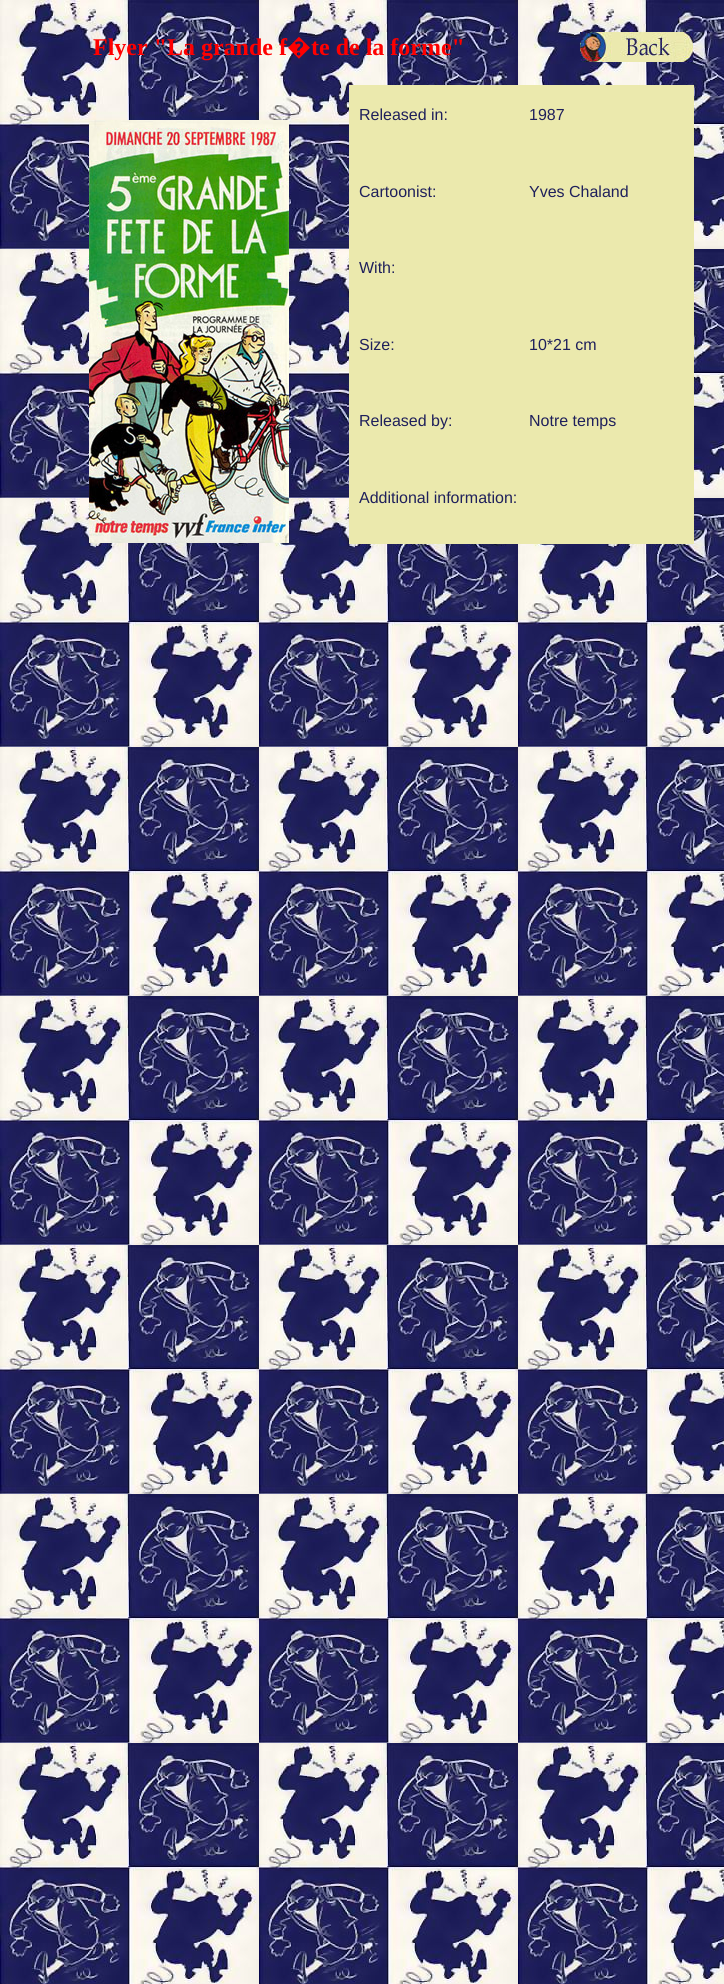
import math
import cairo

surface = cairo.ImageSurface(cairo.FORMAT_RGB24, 724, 1984)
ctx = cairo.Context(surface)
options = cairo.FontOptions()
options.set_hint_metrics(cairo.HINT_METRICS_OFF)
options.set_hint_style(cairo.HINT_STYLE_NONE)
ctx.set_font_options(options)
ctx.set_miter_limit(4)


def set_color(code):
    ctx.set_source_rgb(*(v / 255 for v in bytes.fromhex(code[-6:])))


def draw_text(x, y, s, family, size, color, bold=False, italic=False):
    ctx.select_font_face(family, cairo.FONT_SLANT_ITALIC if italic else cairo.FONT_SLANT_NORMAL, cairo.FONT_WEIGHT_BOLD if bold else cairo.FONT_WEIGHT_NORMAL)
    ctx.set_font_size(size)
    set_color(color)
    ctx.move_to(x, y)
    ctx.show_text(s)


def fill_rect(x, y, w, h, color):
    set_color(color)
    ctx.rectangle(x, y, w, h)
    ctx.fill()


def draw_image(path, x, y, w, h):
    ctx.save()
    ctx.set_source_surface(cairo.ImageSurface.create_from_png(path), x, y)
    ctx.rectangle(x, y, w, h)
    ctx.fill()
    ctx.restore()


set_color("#ffffff")
ctx.paint()
draw_image("assets/img1.png", 0, 0, 724, 1984)
draw_text(93, 55, "Flyer \"La grande f", "Liberation Serif", 24, "#ff0000", bold=True)
draw_text(287, 55, "�", "Noto Sans", 24, "#ff0000", bold=True)
draw_text(311, 55, "te de la forme\"", "Liberation Serif", 24, "#ff0000", bold=True)
draw_image("assets/img2.png", 580, 32, 113, 30)
fill_rect(349, 85, 345, 77, "#ebe9ad")
draw_text(359, 120, "Released in:", "Liberation Sans", 16, "#1f205b")
draw_text(529, 120, "1987", "Liberation Sans", 16, "#1f205b")
draw_image("assets/img3.png", 89, 120, 200, 423)
fill_rect(349, 162, 345, 76, "#ebe9ad")
draw_text(359, 197, "Cartoonist:", "Liberation Sans", 16, "#1f205b")
draw_text(529, 197, "Yves Chaland", "Liberation Sans", 16, "#1f205b")
fill_rect(349, 238, 345, 77, "#ebe9ad")
draw_text(359, 273, "With:", "Liberation Sans", 16, "#1f205b")
fill_rect(349, 315, 345, 76, "#ebe9ad")
draw_text(359, 350, "Size:", "Liberation Sans", 16, "#1f205b")
draw_text(529, 350, "10*21 cm", "Liberation Sans", 16, "#1f205b")
fill_rect(349, 391, 345, 77, "#ebe9ad")
draw_text(359, 426, "Released by:", "Liberation Sans", 16, "#1f205b")
draw_text(529, 426, "Notre temps", "Liberation Sans", 16, "#1f205b")
fill_rect(349, 468, 345, 76, "#ebe9ad")
draw_text(359, 503, "Additional information:", "Liberation Sans", 16, "#1f205b")
surface.write_to_png("output.png")
